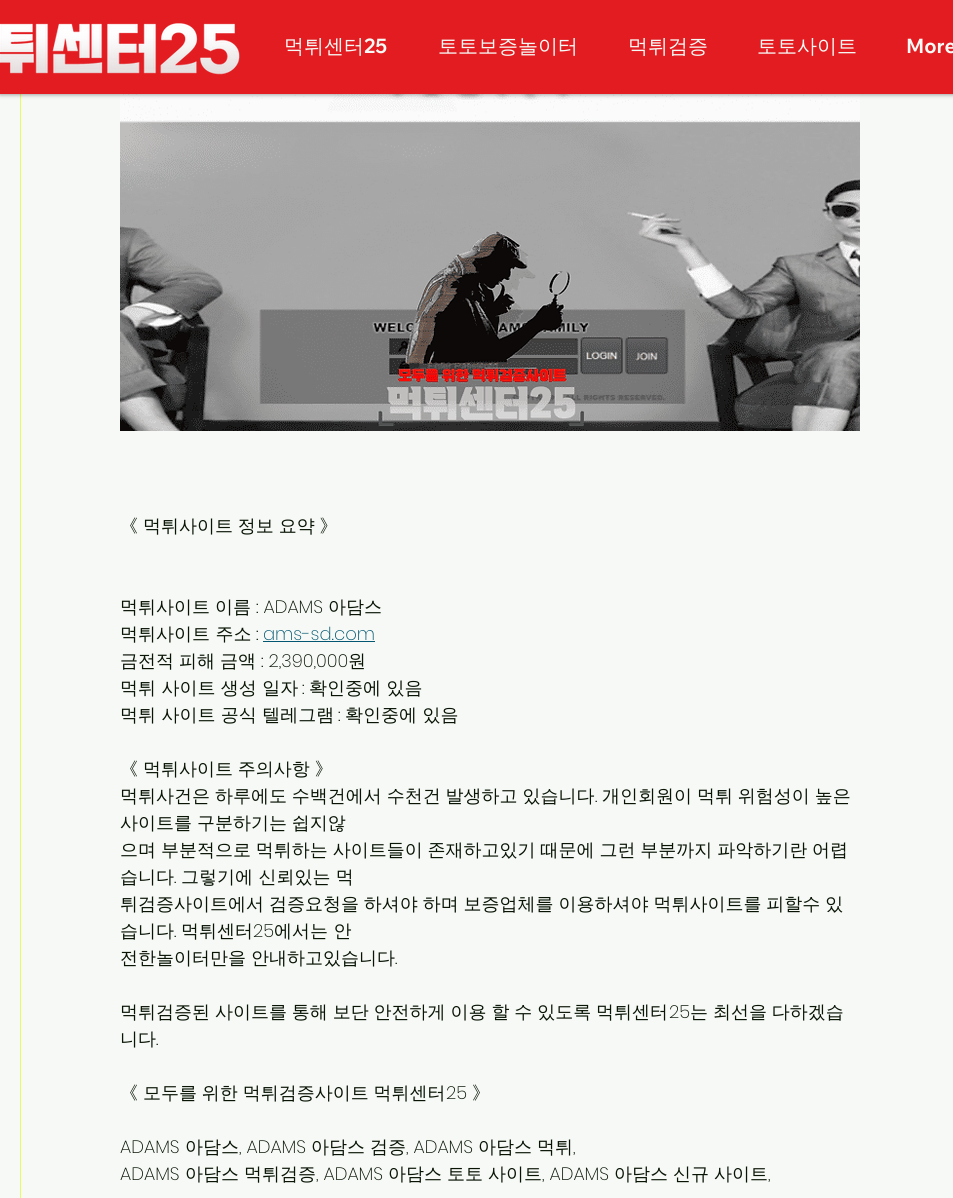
import math
import cairo

surface = cairo.ImageSurface(cairo.FORMAT_RGB24, 953, 1198)
ctx = cairo.Context(surface)
options = cairo.FontOptions()
options.set_hint_metrics(cairo.HINT_METRICS_OFF)
options.set_hint_style(cairo.HINT_STYLE_NONE)
ctx.set_font_options(options)
ctx.set_miter_limit(4)


def set_color(code):
    ctx.set_source_rgb(*(v / 255 for v in bytes.fromhex(code[-6:])))


def draw_text(x, y, s, family, size, color, bold=False, italic=False):
    ctx.select_font_face(family, cairo.FONT_SLANT_ITALIC if italic else cairo.FONT_SLANT_NORMAL, cairo.FONT_WEIGHT_BOLD if bold else cairo.FONT_WEIGHT_NORMAL)
    ctx.set_font_size(size)
    set_color(color)
    ctx.move_to(x, y)
    ctx.show_text(s)


def draw_spaced(x, y, s, letter, word):
    ctx.move_to(x, y)
    for ch in s:
        ctx.show_text(ch)
        ctx.rel_move_to(letter + word * (ch == ' '), 0)


def fill_rect(x, y, w, h, color):
    set_color(color)
    ctx.rectangle(x, y, w, h)
    ctx.fill()


def rounded_rect(x, y, w, h, r):
    ctx.new_sub_path()
    for i, (u, v) in enumerate([(x + w - r, y + h - r), (x + r, y + h - r), (x + r, y + r), (x + w - r, y + r)]):
        ctx.arc(u, v, r, i * math.pi / 2, (i + 1) * math.pi / 2)
    ctx.close_path()


def draw_shadow(x, y, w, h, r, blur, alpha):
    ctx.push_group_with_content(cairo.CONTENT_ALPHA)
    ctx.set_operator(cairo.OPERATOR_SOURCE)
    for i in range(15, -16, -2):
        e = blur * i / 6
        if min(w, h) + 2 * e > 0:
            ctx.set_source_rgba(0, 0, 0, alpha * math.erfc((i - 1) / 8.5) / 2)
            rounded_rect(x - e, y - e, w + 2 * e, h + 2 * e, max(0, min(r + e + blur * .6, min(w, h) / 2 + e)))
            ctx.fill()
    ctx.mask(ctx.pop_group())


def draw_image(path, x, y, w, h):
    ctx.save()
    ctx.set_source_surface(cairo.ImageSurface.create_from_png(path), x, y)
    ctx.rectangle(x, y, w, h)
    ctx.fill()
    ctx.restore()


set_color("#f6f9f5")
ctx.paint()
ctx.rectangle(20.5, -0.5, 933, 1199)
set_color("#e6fc5e")
ctx.set_line_width(1)
ctx.stroke()
draw_image("assets/img2.png", 120, 94, 740, 337)
set_color("#000000")
draw_shadow(0, 0, 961, 94, 0, 2.5, 0.5)
fill_rect(0, 0, 953, 94, "#e21c21")
draw_image("assets/img1.png", 0, 23, 240, 52)
draw_text(284, 53, "먹튀센터", "WenQuanYi Zen Hei Medium", 20, "#f6f9f5")
draw_text(364, 53, "25", "Wix Madefor Text", 20, "#f6f9f5", bold=True)
draw_text(438, 53, "토토보증놀이터", "WenQuanYi Zen Hei Medium", 20, "#f6f9f5")
draw_text(628, 53, "먹튀검증", "WenQuanYi Zen Hei Medium", 20, "#f6f9f5")
draw_text(757, 53, "토토사이트", "WenQuanYi Zen Hei Medium", 20, "#f6f9f5")
draw_text(906, 53, "More", "Wix Madefor Text", 20, "#f6f9f5", bold=True)
ctx.select_font_face("WenQuanYi Zen Hei Medium")
ctx.set_font_size(18)
set_color("#091405")
draw_spaced(120, 532, "《 먹튀사이트 정보 요약 》", 0, -0.5)
draw_text(120, 613, "먹튀사이트", "WenQuanYi Zen Hei Medium", 18, "#091405")
draw_text(215, 613, "이름", "WenQuanYi Zen Hei Medium", 18, "#091405")
draw_text(256, 613, ": ADAMS", "Poppins ExtraLight", 18, "#091405")
draw_text(328, 613, "아담스", "WenQuanYi Zen Hei Medium", 18, "#091405")
draw_text(120, 640, "먹튀사이트 주소", "WenQuanYi Zen Hei Medium", 18, "#091405")
draw_text(256, 640, ":", "Poppins ExtraLight", 18, "#091405")
draw_text(263, 640, "ams-sd.com", "Poppins ExtraLight", 18, "#035772")
fill_rect(263, 641, 112, 1, "#035772")
draw_text(120, 667, "금전적", "WenQuanYi Zen Hei Medium", 18, "#091405")
draw_text(179, 667, "피해", "WenQuanYi Zen Hei Medium", 18, "#091405")
draw_text(220, 667, "금액", "WenQuanYi Zen Hei Medium", 18, "#091405")
draw_text(261, 667, ": 2,390,000", "Poppins ExtraLight", 18, "#091405")
draw_text(348, 667, "원", "WenQuanYi Zen Hei Medium", 18, "#091405")
draw_text(120, 694, "먹튀 사이트 생성 일자", "WenQuanYi Zen Hei Medium", 18, "#091405")
draw_text(302, 694, ":", "Poppins ExtraLight", 18, "#091405")
draw_text(309, 694, "확인중에 있음", "WenQuanYi Zen Hei Medium", 18, "#091405")
draw_text(120, 721, "먹튀 사이트 공식 텔레그램", "WenQuanYi Zen Hei Medium", 18, "#091405")
draw_text(338, 721, ":", "Poppins ExtraLight", 18, "#091405")
draw_text(345, 721, "확인중에 있음", "WenQuanYi Zen Hei Medium", 18, "#091405")
draw_spaced(120, 775, "《 먹튀사이트 주의사항 》", 0, -0.5)
draw_spaced(120, 802, "먹튀사건은 하루에도 수백건에서 수천건 발생하고 있습니다", 0, -0.5)
draw_text(595, 802, ".", "Poppins ExtraLight", 18, "#091405")
ctx.select_font_face("WenQuanYi Zen Hei Medium")
draw_spaced(602, 802, "개인회원이 먹튀 위험성이 높은", 0, -0.5)
draw_spaced(120, 829, "사이트를 구분하기는 쉽지않", 0, -0.5)
draw_spaced(120, 856, "으며 부분적으로 먹튀하는 사이트들이 존재하고있기 때문에 그런 부분까지 파악하기란 어렵", 0, -0.5)
draw_text(120, 883, "습니다", "WenQuanYi Zen Hei Medium", 18, "#091405")
draw_text(174, 883, ".", "Poppins ExtraLight", 18, "#091405")
draw_text(181, 883, "그렇기에 신뢰있는 먹", "WenQuanYi Zen Hei Medium", 18, "#091405")
draw_spaced(120, 910, "튀검증사이트에서 검증요청을 하셔야 하며 보증업체를 이용하셔야 먹튀사이트를 피할수 있", 0, -0.5)
draw_text(120, 937, "습니다", "WenQuanYi Zen Hei Medium", 18, "#091405")
draw_text(174, 937, ".", "Poppins ExtraLight", 18, "#091405")
draw_text(181, 937, "먹튀센터", "WenQuanYi Zen Hei Medium", 18, "#091405")
draw_text(253, 937, "25", "Poppins ExtraLight", 18, "#091405")
draw_text(274, 937, "에서는 안", "WenQuanYi Zen Hei Medium", 18, "#091405")
draw_spaced(120, 964, "전한놀이터만을 안내하고있습니다", 0, -0.5)
draw_text(395, 964, ".", "Poppins ExtraLight", 18, "#091405")
ctx.select_font_face("WenQuanYi Zen Hei Medium")
draw_spaced(120, 1018, "먹튀검증된 사이트를 통해 보단 안전하게 이용 할 수 있도록 먹튀센터", 0, -0.5)
draw_text(669, 1018, "25", "Poppins ExtraLight", 18, "#091405")
ctx.select_font_face("WenQuanYi Zen Hei Medium")
draw_spaced(690, 1018, "는 최선을 다하겠습", 0, -0.5)
draw_text(120, 1045, "니다", "WenQuanYi Zen Hei Medium", 18, "#091405")
draw_text(156, 1045, ".", "Poppins ExtraLight", 18, "#091405")
ctx.select_font_face("WenQuanYi Zen Hei Medium")
draw_spaced(120, 1099, "《 모두를 위한 먹튀검증사이트 먹튀센터", 0, -0.5)
draw_text(446, 1099, "25", "Poppins ExtraLight", 18, "#091405")
draw_text(472, 1099, "》", "WenQuanYi Zen Hei Medium", 18, "#091405")
draw_text(120, 1153, "ADAMS", "Poppins ExtraLight", 18, "#091405")
draw_text(185, 1153, "아담스", "WenQuanYi Zen Hei Medium", 18, "#091405")
draw_text(239, 1153, ", ADAMS", "Poppins ExtraLight", 18, "#091405")
draw_text(311, 1153, "아담스", "WenQuanYi Zen Hei Medium", 18, "#091405")
draw_text(370, 1153, "검증", "WenQuanYi Zen Hei Medium", 18, "#091405")
draw_text(406, 1153, ", ADAMS", "Poppins ExtraLight", 18, "#091405")
draw_text(478, 1153, "아담스", "WenQuanYi Zen Hei Medium", 18, "#091405")
draw_text(537, 1153, "먹튀", "WenQuanYi Zen Hei Medium", 18, "#091405")
draw_text(573, 1153, ",", "Poppins ExtraLight", 18, "#091405")
draw_text(120, 1180, "ADAMS", "Poppins ExtraLight", 18, "#091405")
draw_text(185, 1180, "아담스", "WenQuanYi Zen Hei Medium", 18, "#091405")
draw_text(244, 1180, "먹튀검증", "WenQuanYi Zen Hei Medium", 18, "#091405")
draw_text(316, 1180, ", ADAMS", "Poppins ExtraLight", 18, "#091405")
draw_text(388, 1180, "아담스", "WenQuanYi Zen Hei Medium", 18, "#091405")
draw_text(447, 1180, "토토", "WenQuanYi Zen Hei Medium", 18, "#091405")
draw_text(488, 1180, "사이트", "WenQuanYi Zen Hei Medium", 18, "#091405")
draw_text(542, 1180, ", ADAMS", "Poppins ExtraLight", 18, "#091405")
draw_text(614, 1180, "아담스", "WenQuanYi Zen Hei Medium", 18, "#091405")
draw_text(673, 1180, "신규", "WenQuanYi Zen Hei Medium", 18, "#091405")
draw_text(714, 1180, "사이트", "WenQuanYi Zen Hei Medium", 18, "#091405")
draw_text(768, 1180, ",", "Poppins ExtraLight", 18, "#091405")
surface.write_to_png("output.png")
